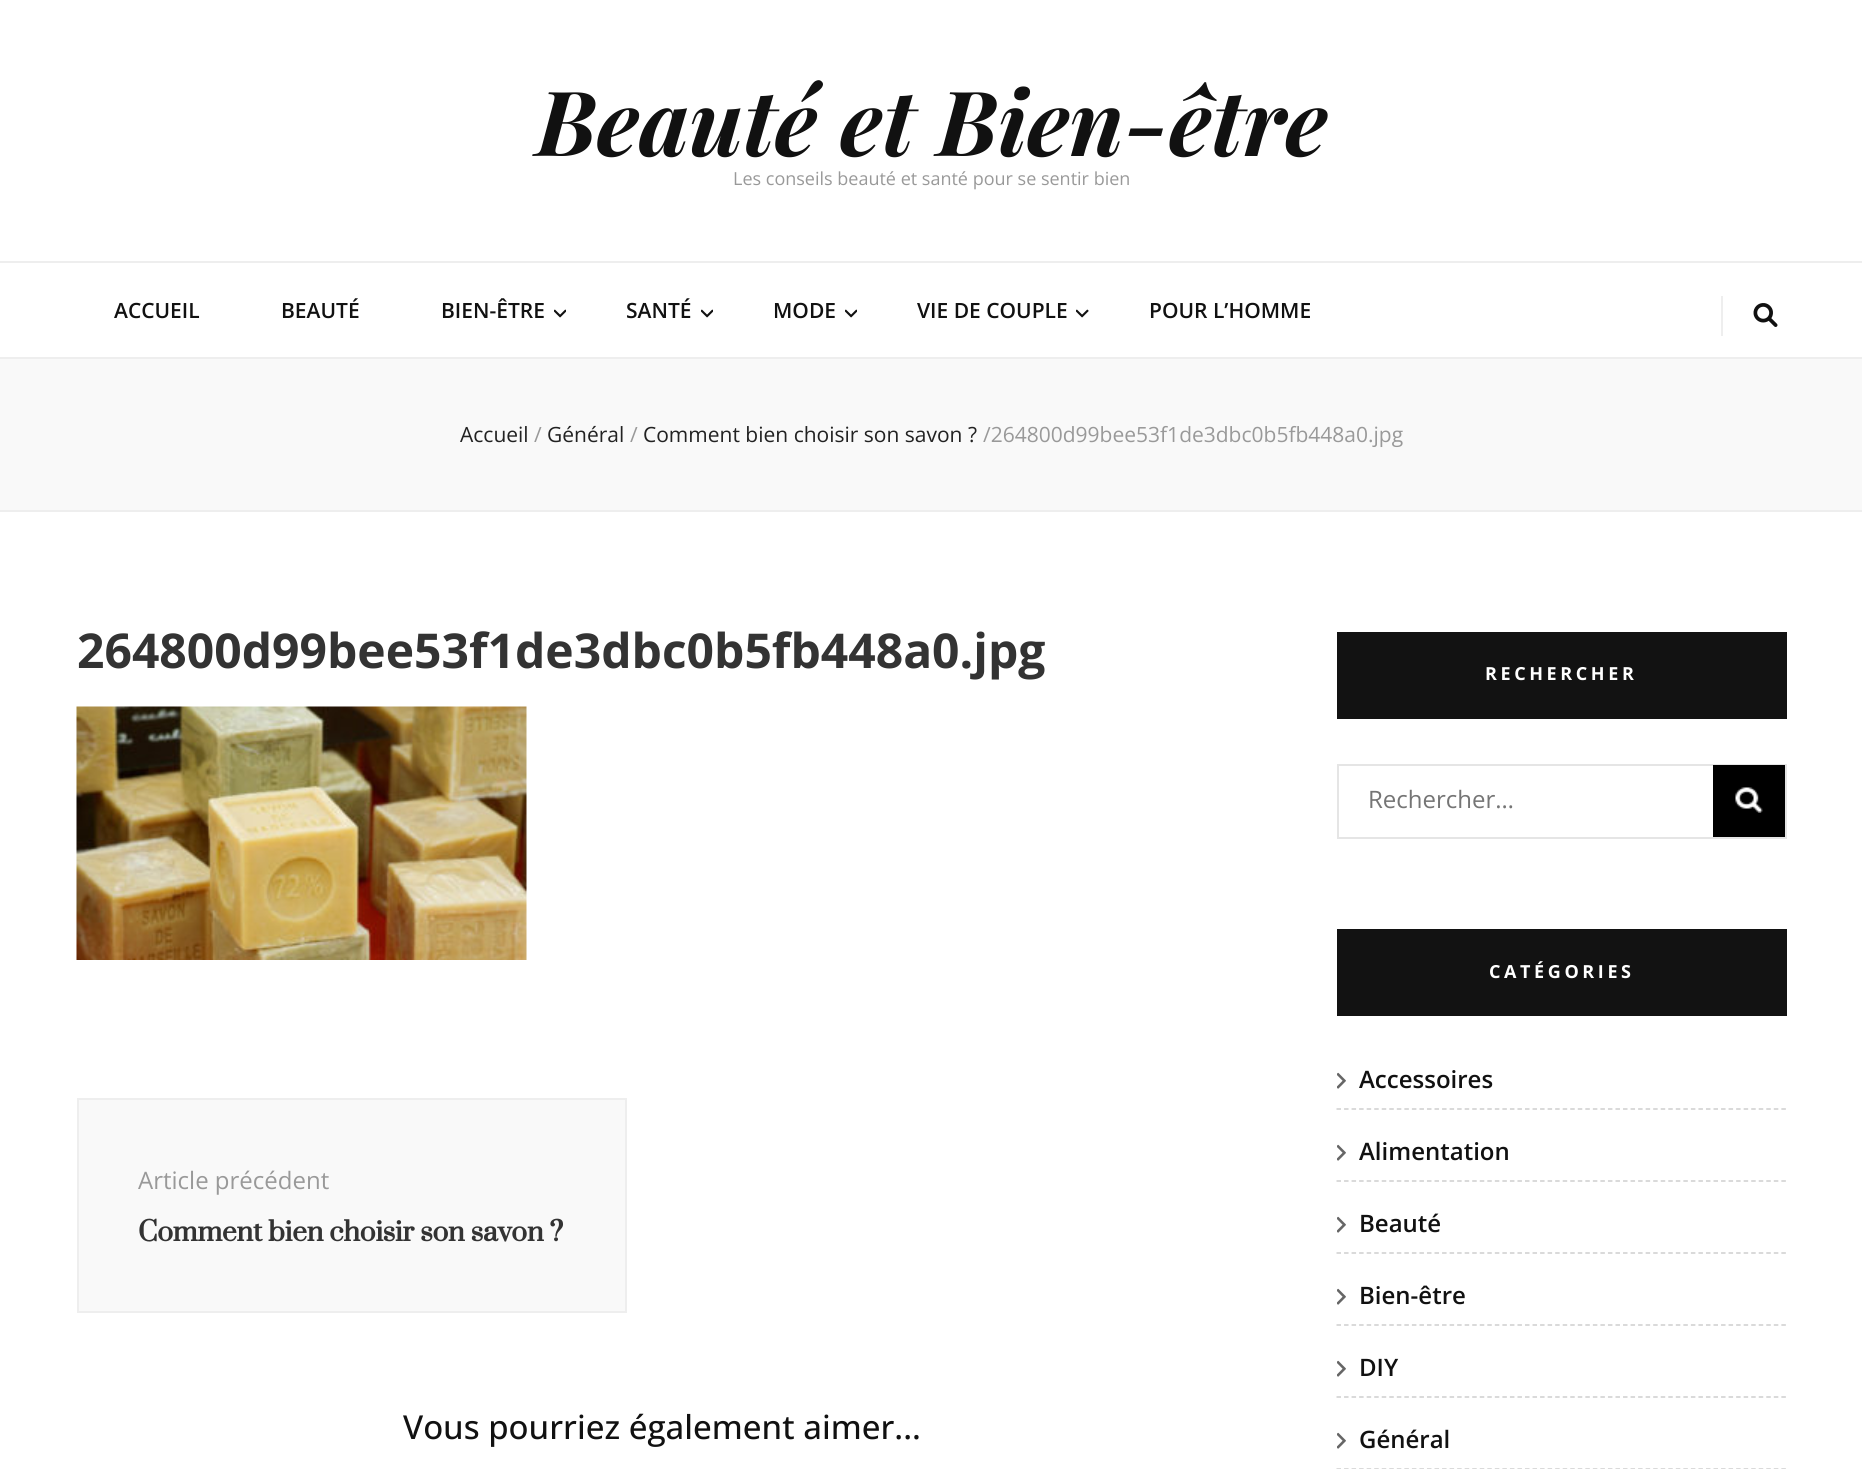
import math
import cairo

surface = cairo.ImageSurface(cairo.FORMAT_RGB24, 1862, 1469)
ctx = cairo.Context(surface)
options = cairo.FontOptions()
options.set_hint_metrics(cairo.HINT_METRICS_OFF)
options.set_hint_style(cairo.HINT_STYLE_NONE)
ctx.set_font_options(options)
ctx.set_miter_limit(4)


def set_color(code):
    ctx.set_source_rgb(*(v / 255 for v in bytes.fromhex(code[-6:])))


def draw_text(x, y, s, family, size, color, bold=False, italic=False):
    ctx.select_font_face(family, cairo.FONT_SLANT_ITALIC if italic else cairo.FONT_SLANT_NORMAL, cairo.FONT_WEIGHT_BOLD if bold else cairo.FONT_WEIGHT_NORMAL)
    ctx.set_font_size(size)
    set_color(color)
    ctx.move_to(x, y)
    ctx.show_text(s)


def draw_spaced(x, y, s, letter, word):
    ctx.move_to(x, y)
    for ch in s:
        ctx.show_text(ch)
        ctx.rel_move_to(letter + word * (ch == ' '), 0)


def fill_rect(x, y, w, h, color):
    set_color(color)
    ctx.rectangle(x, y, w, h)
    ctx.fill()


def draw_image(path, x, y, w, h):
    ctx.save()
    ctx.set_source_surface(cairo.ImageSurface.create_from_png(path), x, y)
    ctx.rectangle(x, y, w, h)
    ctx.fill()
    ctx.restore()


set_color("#ffffff")
ctx.paint()
draw_text(536, 156, "Beauté et Bien-être", "Playfair Display", 90, "#111111", bold=True, italic=True)
draw_text(733, 185, "Les conseils beauté et santé pour se sentir bien", "Open Sans", 18, "#999999")
fill_rect(0, 261, 1862, 2, "#eeeeee")
fill_rect(0, 357, 1862, 2, "#eeeeee")
draw_text(114, 318, "ACCUEIL", "Open Sans SemiBold", 21, "#111111")
draw_text(281, 318, "BEAUTÉ", "Open Sans SemiBold", 21, "#111111")
draw_text(441, 318, "BIEN-ÊTRE", "Open Sans SemiBold", 21, "#111111")
draw_image("assets/img1.png", 554, 309, 12, 9)
draw_text(626, 318, "SANTÉ", "Open Sans SemiBold", 21, "#111111")
draw_image("assets/img1.png", 701, 309, 12, 9)
draw_text(773, 318, "MODE", "Open Sans SemiBold", 21, "#111111")
draw_image("assets/img1.png", 845, 309, 12, 9)
draw_text(917, 318, "VIE DE COUPLE", "Open Sans SemiBold", 21, "#111111")
draw_image("assets/img2.png", 1076, 309, 13, 9)
draw_text(1149, 318, "POUR L’HOMME", "Open Sans SemiBold", 21, "#111111")
fill_rect(1721, 296, 2, 40, "#eeeeee")
draw_image("assets/img3.png", 1753, 303, 25, 24)
fill_rect(0, 359, 1862, 151, "#f9f9f9")
fill_rect(0, 510, 1862, 2, "#eeeeee")
draw_text(460, 442, "Accueil", "Open Sans", 21, "#222222")
draw_text(534, 442, "/", "Open Sans", 21, "#999999")
draw_text(547, 442, "Général", "Open Sans", 21, "#222222")
draw_text(630, 442, "/", "Open Sans", 21, "#999999")
draw_text(643, 442, "Comment bien choisir son savon ?", "Open Sans", 21, "#222222")
draw_text(983, 442, "/264800d99bee53f1de3dbc0b5fb448a0.jpg", "Open Sans", 21, "#999999")
draw_text(77, 668, "264800d99bee53f1de3dbc0b5fb448a0.jpg", "Open Sans", 48, "#333333", bold=True)
draw_image("assets/img4.png", 76, 706, 451, 254)
set_color("#f9f9f9")
ctx.rectangle(78, 1099, 548, 213)
ctx.fill_preserve()
set_color("#eeeeee")
ctx.stroke()
draw_text(138, 1189, "Article précédent", "Open Sans", 24, "#999999")
draw_text(138, 1241, "Comment bien choisir son savon ?", "Suranna", 33, "#333333", bold=True)
draw_text(403, 1439, "Vous pourriez également aimer...", "Open Sans Medium", 33, "#111111")
fill_rect(1337, 632, 450, 87, "#121212")
ctx.select_font_face("Open Sans", cairo.FONT_SLANT_NORMAL, cairo.FONT_WEIGHT_BOLD)
ctx.set_font_size(18)
set_color("#ffffff")
draw_spaced(1485, 680, "RECHERCHER", 3.6, 0)
ctx.rectangle(1338, 765, 448, 73)
set_color("#e5e5e5")
ctx.stroke()
draw_text(1368, 808, "Rechercher…", "Open Sans", 24, "#757575")
fill_rect(1713, 765, 72, 72, "#000000")
draw_image("assets/img5.png", 1735, 787, 28, 26)
fill_rect(1337, 929, 450, 87, "#121212")
ctx.select_font_face("Open Sans", cairo.FONT_SLANT_NORMAL, cairo.FONT_WEIGHT_BOLD)
ctx.set_font_size(18)
set_color("#ffffff")
draw_spaced(1489, 978, "CATÉGORIES", 3.6, 0)
ctx.new_path()
ctx.move_to(1336.5, 1109)
ctx.line_to(1786.5, 1109)
set_color("#cecece")
ctx.set_line_width(1.5)
ctx.set_dash([4.5, 3.04])
ctx.stroke()
draw_image("assets/img6.png", 1337, 1072, 9, 17)
draw_text(1359, 1088, "Accessoires", "Open Sans SemiBold", 24, "#111111")
ctx.new_path()
ctx.move_to(1336.5, 1181)
ctx.line_to(1786.5, 1181)
set_color("#cecece")
ctx.stroke()
draw_image("assets/img6.png", 1337, 1144, 9, 17)
draw_text(1359, 1160, "Alimentation", "Open Sans SemiBold", 24, "#111111")
ctx.new_path()
ctx.move_to(1336.5, 1253)
ctx.line_to(1786.5, 1253)
set_color("#cecece")
ctx.stroke()
draw_image("assets/img6.png", 1337, 1216, 9, 17)
draw_text(1359, 1232, "Beauté", "Open Sans SemiBold", 24, "#111111")
ctx.new_path()
ctx.move_to(1336.5, 1325)
ctx.line_to(1786.5, 1325)
set_color("#cecece")
ctx.stroke()
draw_image("assets/img6.png", 1337, 1288, 9, 17)
draw_text(1359, 1304, "Bien-être", "Open Sans SemiBold", 24, "#111111")
ctx.new_path()
ctx.move_to(1336.5, 1397)
ctx.line_to(1786.5, 1397)
set_color("#cecece")
ctx.stroke()
draw_image("assets/img6.png", 1337, 1360, 9, 17)
draw_text(1359, 1376, "DIY", "Open Sans SemiBold", 24, "#111111")
ctx.new_path()
ctx.move_to(1336.5, 1469)
ctx.line_to(1786.5, 1469)
set_color("#cecece")
ctx.stroke()
draw_image("assets/img6.png", 1337, 1432, 9, 17)
draw_text(1359, 1448, "Général", "Open Sans SemiBold", 24, "#111111")
surface.write_to_png("output.png")
